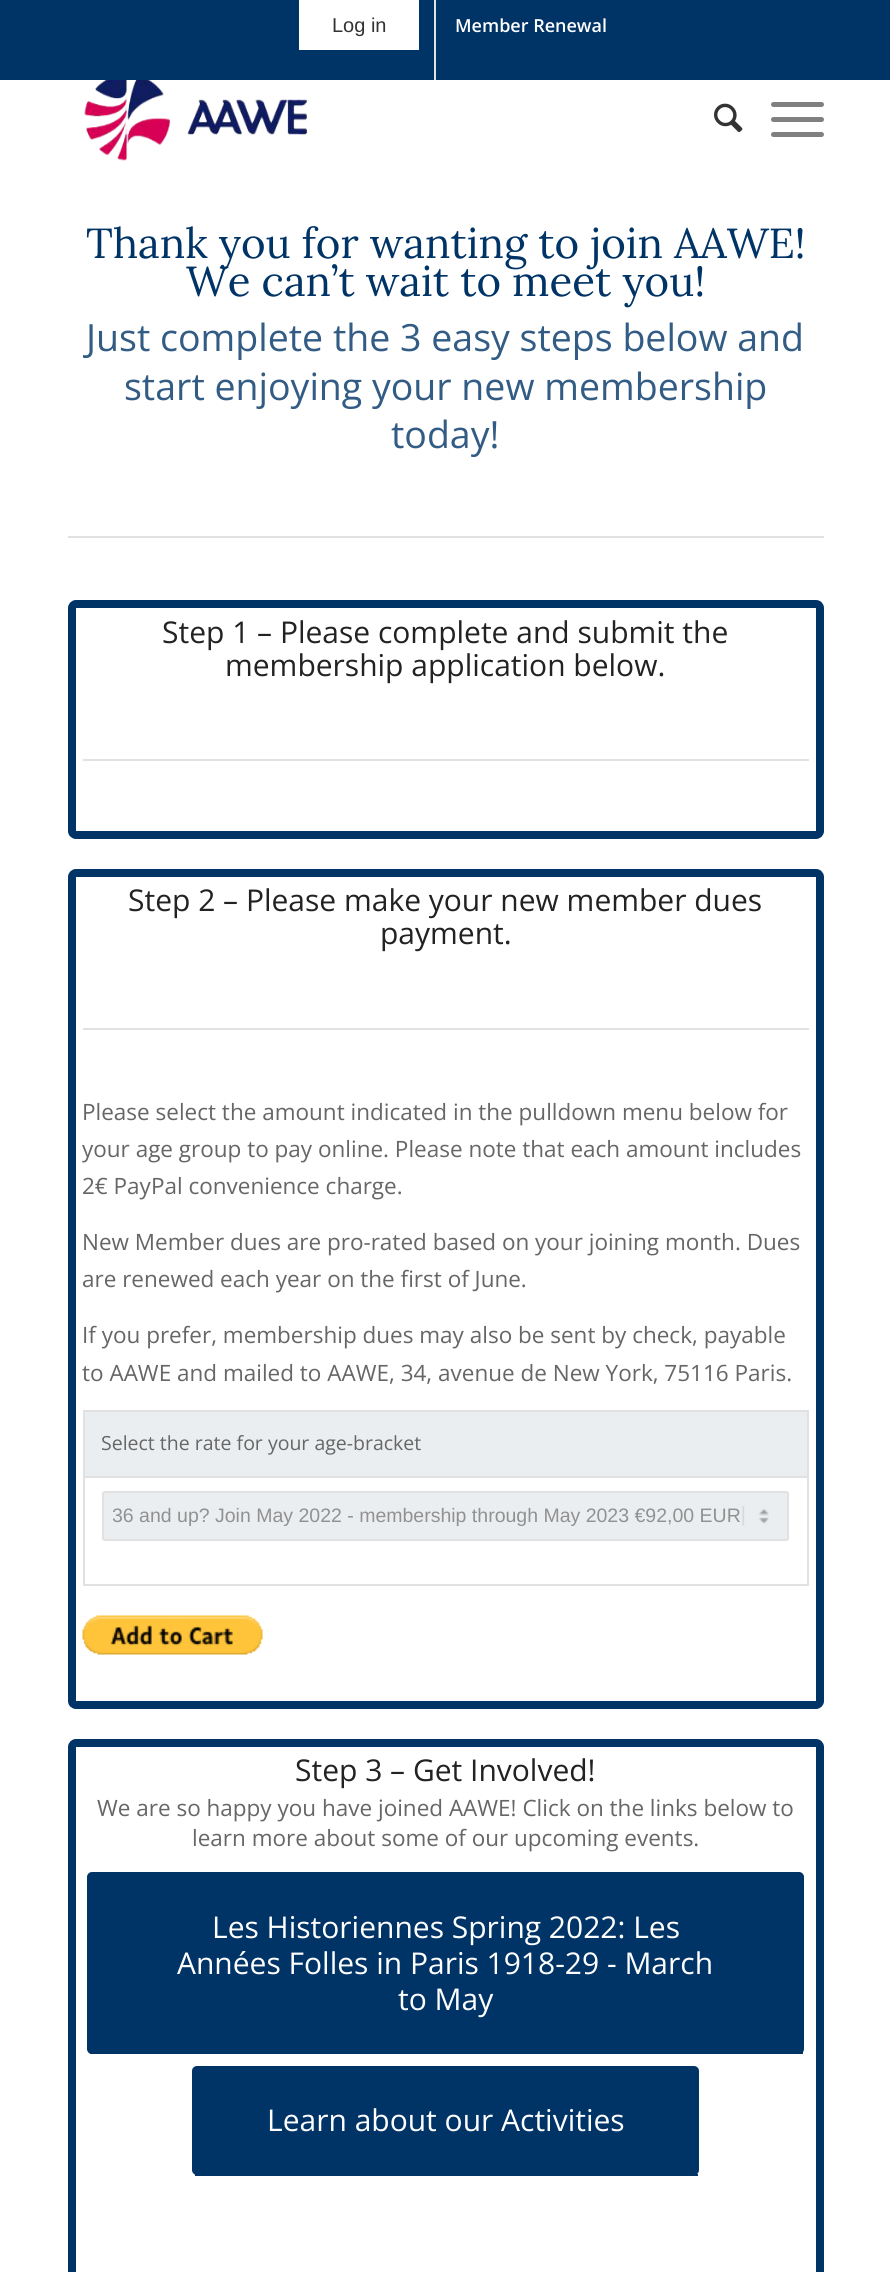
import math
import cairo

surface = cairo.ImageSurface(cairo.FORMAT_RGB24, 890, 2272)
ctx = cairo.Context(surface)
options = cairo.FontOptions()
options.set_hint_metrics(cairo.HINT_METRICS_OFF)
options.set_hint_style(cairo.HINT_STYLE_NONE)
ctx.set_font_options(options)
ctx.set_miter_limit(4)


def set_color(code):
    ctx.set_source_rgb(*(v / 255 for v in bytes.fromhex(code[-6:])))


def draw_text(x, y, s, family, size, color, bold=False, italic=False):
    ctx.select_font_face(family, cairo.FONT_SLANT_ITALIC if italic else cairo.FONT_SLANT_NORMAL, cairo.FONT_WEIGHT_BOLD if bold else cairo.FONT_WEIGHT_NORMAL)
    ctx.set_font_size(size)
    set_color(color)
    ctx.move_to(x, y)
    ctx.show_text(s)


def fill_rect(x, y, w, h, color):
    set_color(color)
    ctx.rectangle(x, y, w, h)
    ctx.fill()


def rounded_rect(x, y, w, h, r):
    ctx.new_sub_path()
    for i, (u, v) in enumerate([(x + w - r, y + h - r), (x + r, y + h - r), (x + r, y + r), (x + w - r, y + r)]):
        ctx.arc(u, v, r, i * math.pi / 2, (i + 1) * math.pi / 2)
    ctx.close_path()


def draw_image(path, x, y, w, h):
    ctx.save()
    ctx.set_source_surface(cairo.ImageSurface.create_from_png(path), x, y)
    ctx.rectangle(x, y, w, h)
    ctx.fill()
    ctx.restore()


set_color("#ffffff")
ctx.paint()
fill_rect(0, 0, 890, 80, "#003366")
fill_rect(434, 0, 2, 80, "#e1e1e1")
fill_rect(299, 0, 120, 50, "#ffffff")
draw_text(332, 32, "Log in", "Liberation Sans", 20, "#333333")
draw_text(455, 32, "Member Renewal", "Open Sans SemiBold", 18, "#ffffff")
draw_image("assets/img1.png", 84, 80, 224, 81)
draw_image("assets/img2.png", 714, 103, 29, 30)
set_color("#808080")
rounded_rect(771, 117, 53, 5, 2.5)
ctx.fill()
rounded_rect(771, 102, 53, 5, 2.5)
ctx.fill()
rounded_rect(771, 132, 53, 5, 2.5)
ctx.fill()
draw_text(86, 258, "Thank you for wanting to join AAWE!", "Lora", 42, "#003366")
draw_text(186, 296, "We can’t wait to meet you!", "Lora", 42, "#003366")
draw_text(86, 351, "Just complete the 3 easy steps below and", "Open Sans", 37.5, "#335c85")
draw_text(124, 400, "start enjoying your new membership", "Open Sans", 37.5, "#335c85")
draw_text(391, 448, "today!", "Open Sans", 37.5, "#335c85")
fill_rect(68, 536, 756, 2, "#e1e1e1")
rounded_rect(72, 604, 748, 231, 4)
set_color("#003366")
ctx.set_line_width(8)
ctx.stroke()
draw_text(162, 643, "Step 1 – Please complete and submit the", "Open Sans", 30, "#222222")
draw_text(225, 676, "membership application below.", "Open Sans", 30, "#222222")
fill_rect(83, 759, 726, 2, "#e1e1e1")
rounded_rect(72, 873, 748, 832, 4)
set_color("#003366")
ctx.stroke()
draw_text(128, 911, "Step 2 – Please make your new member dues", "Open Sans", 30, "#222222")
draw_text(380, 944, "payment.", "Open Sans", 30, "#222222")
fill_rect(83, 1028, 726, 2, "#e1e1e1")
draw_text(82, 1120, "Please select the amount indicated in the pulldown menu below for", "Open Sans", 22.5, "#666666")
draw_text(82, 1157, "your age group to pay online. Please note that each amount includes", "Open Sans", 22.5, "#666666")
draw_text(82, 1194, "2€ PayPal convenience charge.", "Open Sans", 22.5, "#666666")
draw_text(82, 1250, "New Member dues are pro-rated based on your joining month. Dues", "Open Sans", 22.5, "#666666")
draw_text(82, 1287, "are renewed each year on the first of June.", "Open Sans", 22.5, "#666666")
draw_text(82, 1343, "If you prefer, membership dues may also be sent by check, payable", "Open Sans", 22.5, "#666666")
draw_text(82, 1381, "to AAWE and mailed to AAWE, 34, avenue de New York, 75116 Paris.", "Open Sans", 22.5, "#666666")
fill_rect(85, 1412, 722, 64, "#ebeef0")
fill_rect(83, 1410, 726, 2, "#e1e1e1")
fill_rect(807, 1476, 2, 110, "#e1e1e1")
fill_rect(807, 1410, 2, 68, "#e1e1e1")
fill_rect(83, 1584, 726, 2, "#e1e1e1")
fill_rect(83, 1476, 2, 110, "#e1e1e1")
fill_rect(83, 1476, 726, 2, "#e1e1e1")
fill_rect(83, 1410, 2, 68, "#e1e1e1")
draw_text(101, 1450, "Select the rate for your age-bracket", "Open Sans", 19.5, "#666666")
set_color("#ebeef0")
rounded_rect(102, 1491, 687, 50, 3)
ctx.fill()
draw_image("assets/img3.png", 742, 1506, 27, 20)
rounded_rect(103, 1492, 685, 48, 2)
set_color("#e1e1e1")
ctx.set_line_width(2)
ctx.stroke()
ctx.save()
ctx.rectangle(113, 1505, 666, 22)
ctx.clip()
draw_text(112, 1522, "36 and up? Join May 2022 - membership through May 2023 €92,00 EUR", "Liberation Sans", 19.5, "#919191")
ctx.restore()
draw_image("assets/img4.png", 82, 1615, 181, 40)
rounded_rect(72, 1743, 748, 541, 4)
set_color("#003366")
ctx.set_line_width(8)
ctx.stroke()
draw_text(295, 1781, "Step 3 – Get Involved!", "Open Sans", 30, "#222222")
draw_text(97, 1816, "We are so happy you have joined AAWE! Click on the links below to", "Open Sans", 22.5, "#666666")
draw_text(192, 1846, "learn more about some of our upcoming events.", "Open Sans", 22.5, "#666666")
set_color("#003366")
rounded_rect(87, 1872, 717, 182, 5)
ctx.fill()
fill_rect(90, 2052, 713, 2, "#003366")
draw_text(212, 1938, "Les Historiennes Spring 2022: Les", "Open Sans", 30, "#ffffff")
draw_text(177, 1974, "Années Folles in Paris 1918-29 - March", "Open Sans", 30, "#ffffff")
draw_text(398, 2010, "to May", "Open Sans", 30, "#ffffff")
set_color("#003366")
rounded_rect(192, 2066, 507, 109, 5)
ctx.fill()
fill_rect(195, 2174, 503, 2, "#003366")
draw_text(267, 2131, "Learn about our Activities", "Open Sans", 30, "#ffffff")
surface.write_to_png("output.png")
